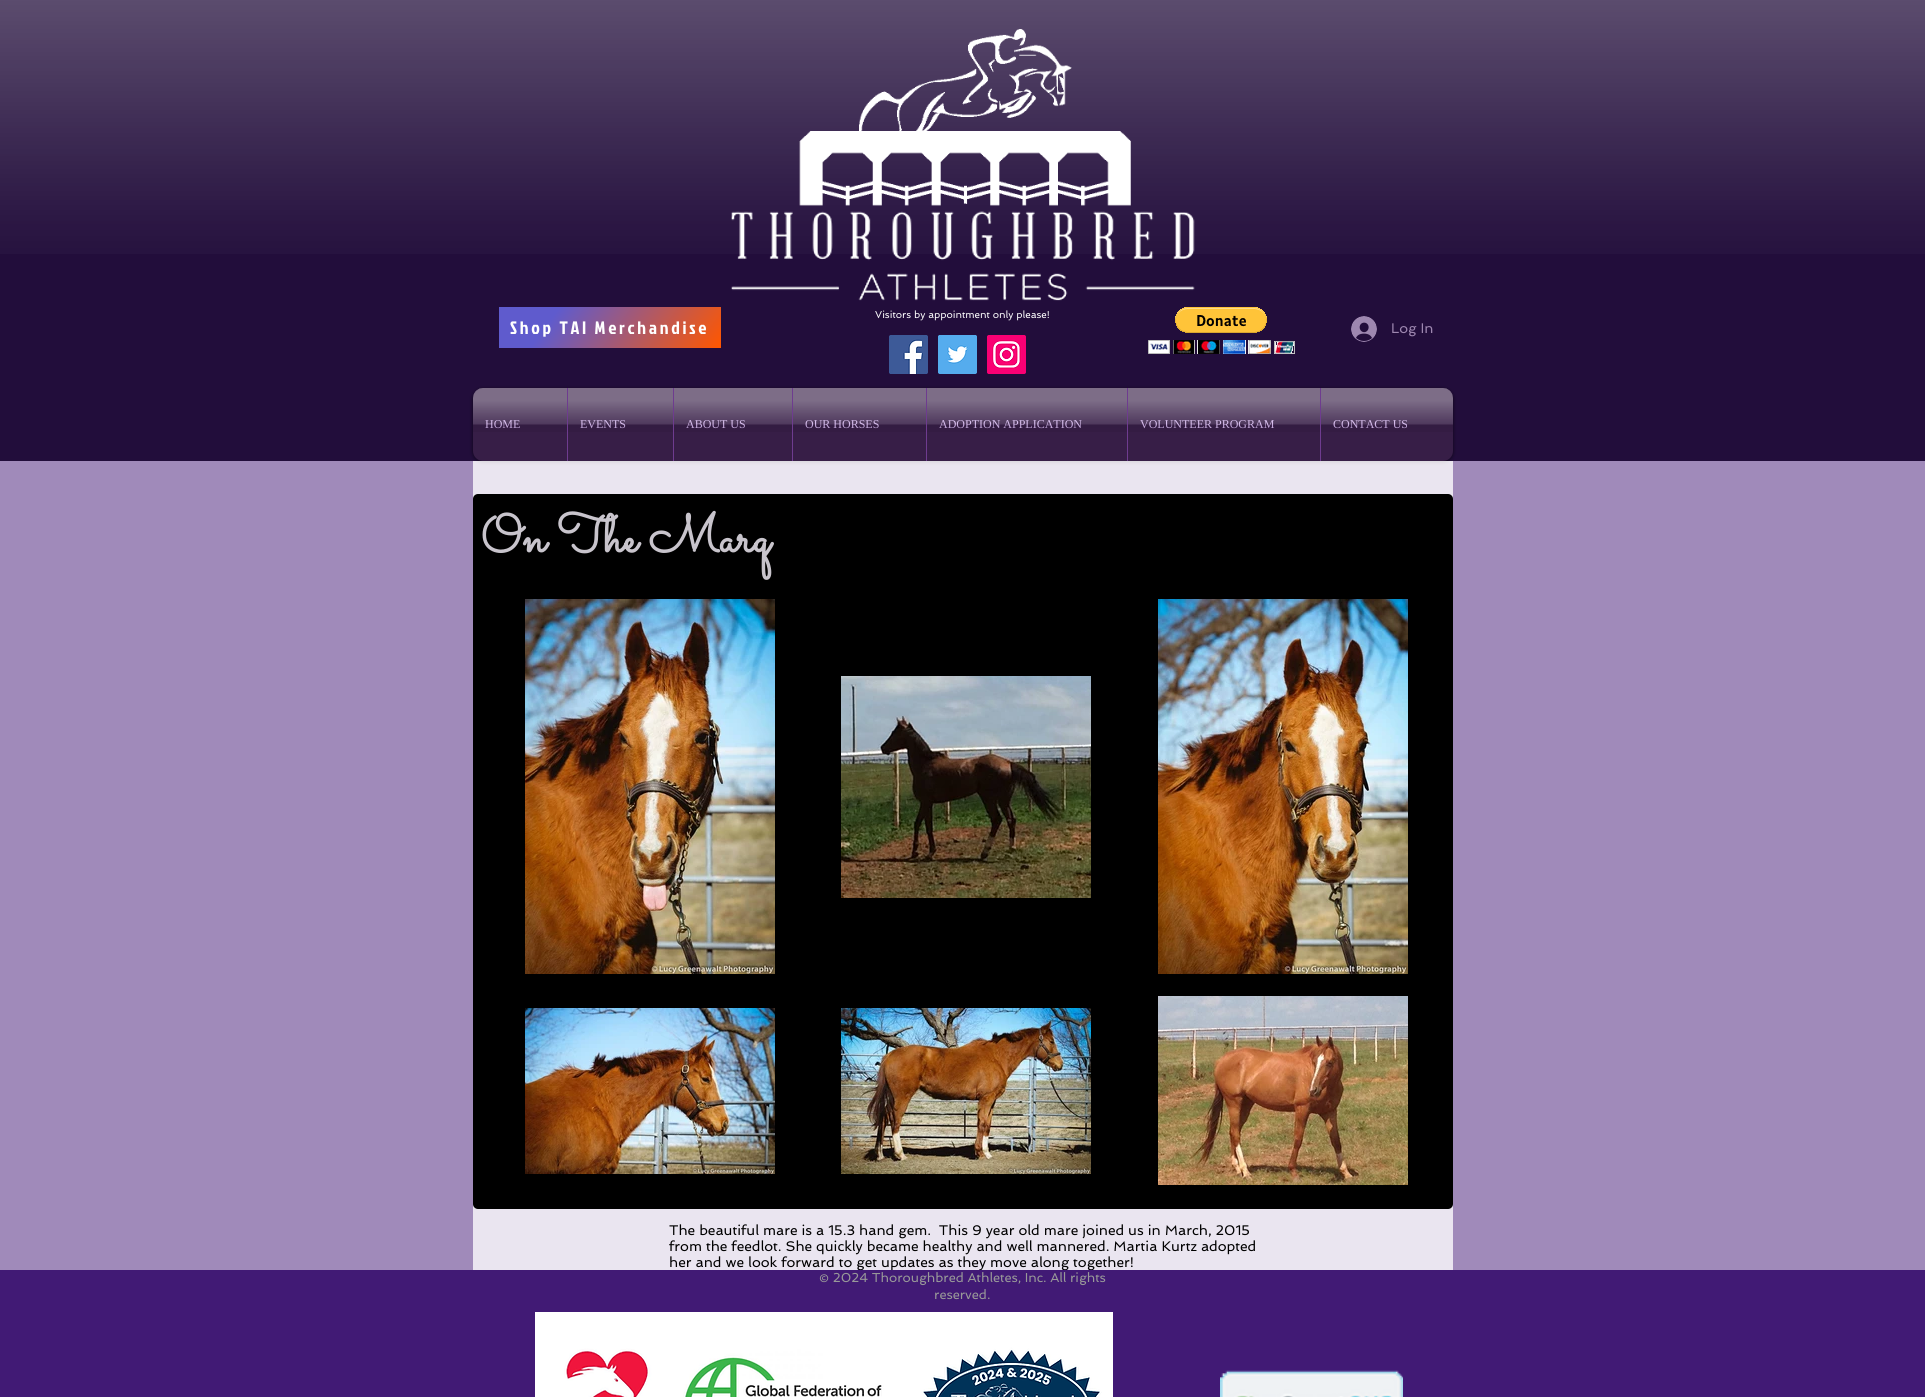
import math
import cairo

surface = cairo.ImageSurface(cairo.FORMAT_RGB24, 1925, 1397)
ctx = cairo.Context(surface)
options = cairo.FontOptions()
options.set_hint_metrics(cairo.HINT_METRICS_OFF)
options.set_hint_style(cairo.HINT_STYLE_NONE)
ctx.set_font_options(options)
ctx.set_miter_limit(4)


def set_color(code):
    ctx.set_source_rgb(*(v / 255 for v in bytes.fromhex(code[-6:])))


def draw_text(x, y, s, family, size, color, bold=False, italic=False):
    ctx.select_font_face(family, cairo.FONT_SLANT_ITALIC if italic else cairo.FONT_SLANT_NORMAL, cairo.FONT_WEIGHT_BOLD if bold else cairo.FONT_WEIGHT_NORMAL)
    ctx.set_font_size(size)
    set_color(color)
    ctx.move_to(x, y)
    ctx.show_text(s)


def draw_spaced(x, y, s, letter, word):
    ctx.move_to(x, y)
    for ch in s:
        ctx.show_text(ch)
        ctx.rel_move_to(letter + word * (ch == ' '), 0)


def fill_rect(x, y, w, h, color):
    set_color(color)
    ctx.rectangle(x, y, w, h)
    ctx.fill()


def rounded_rect(x, y, w, h, r):
    ctx.new_sub_path()
    for i, (u, v) in enumerate([(x + w - r, y + h - r), (x + r, y + h - r), (x + r, y + r), (x + w - r, y + r)]):
        ctx.arc(u, v, r, i * math.pi / 2, (i + 1) * math.pi / 2)
    ctx.close_path()


def draw_shadow(x, y, w, h, r, blur, alpha):
    ctx.push_group_with_content(cairo.CONTENT_ALPHA)
    ctx.set_operator(cairo.OPERATOR_SOURCE)
    for i in range(15, -16, -2):
        e = blur * i / 6
        if min(w, h) + 2 * e > 0:
            ctx.set_source_rgba(0, 0, 0, alpha * math.erfc((i - 1) / 8.5) / 2)
            rounded_rect(x - e, y - e, w + 2 * e, h + 2 * e, max(0, min(r + e + blur * .6, min(w, h) / 2 + e)))
            ctx.fill()
    ctx.mask(ctx.pop_group())


def draw_image(path, x, y, w, h):
    ctx.save()
    ctx.set_source_surface(cairo.ImageSurface.create_from_png(path), x, y)
    ctx.rectangle(x, y, w, h)
    ctx.fill()
    ctx.restore()


set_color("#a08aba")
ctx.paint()
fill_rect(0, 0, 1925, 461, "#220d3b")
draw_image("assets/img1.png", 0, 0, 1925, 254)
draw_image("assets/img2.png", 799, 29, 332, 177)
draw_image("assets/img3.png", 731, 211, 464, 90)
draw_text(875, 318, "Visitors by appointment only please!", "Spinnaker", 10, "#ffffff")
draw_image("assets/img4.png", 1148, 307, 147, 47)
gradient = cairo.LinearGradient(528, 268, 692, 387)
gradient.add_color_stop_rgba(0.24, 0.373, 0.357, 0.804, 1)
gradient.add_color_stop_rgba(1, 1, 0.341, 0, 1)
ctx.set_source(gradient)
ctx.rectangle(499, 307, 222, 41)
ctx.fill()
ctx.select_font_face("Jockey One")
ctx.set_font_size(18)
set_color("#ffffff")
draw_spaced(510, 334, "Shop TAI Merchandise", 2.75, 0)
draw_image("assets/img5.png", 1351, 316, 26, 26)
draw_text(1391, 333, "Log In", "Spinnaker", 14, "#9e87b0")
draw_image("assets/img6.png", 889, 335, 39, 39)
draw_image("assets/img7.png", 938, 335, 39, 39)
draw_image("assets/img8.png", 987, 335, 39, 39)
set_color("#000000")
draw_shadow(473, 389, 980, 73, 10, 2, 0.6)
draw_image("assets/img9.png", 473, 388, 980, 10)
set_color("#371e47")
ctx.new_path()
ctx.move_to(483, 388)
ctx.line_to(567, 388)
ctx.line_to(567, 461)
ctx.line_to(483, 461)
ctx.curve_to(477.5, 461, 473, 456.5, 473, 451)
ctx.line_to(473, 398)
ctx.curve_to(473, 392.5, 477.5, 388, 483, 388)
ctx.close_path()
ctx.fill()
draw_text(485, 428, "HOME", "Liberation Serif", 12, "#d2b5eb")
draw_image("assets/img10.png", 473, 388, 94, 44)
fill_rect(568, 388, 105, 73, "#371e47")
fill_rect(567, 388, 1, 73, "#6e3c8f")
draw_text(580, 428, "EVENTS", "Liberation Serif", 12, "#d2b5eb")
draw_image("assets/img11.png", 568, 388, 105, 44)
fill_rect(674, 388, 118, 73, "#371e47")
fill_rect(673, 388, 1, 73, "#6e3c8f")
draw_text(686, 428, "ABOUT US", "Liberation Serif", 12, "#d2b5eb")
draw_image("assets/img12.png", 674, 388, 118, 44)
fill_rect(793, 388, 133, 73, "#371e47")
fill_rect(792, 388, 1, 73, "#6e3c8f")
draw_text(805, 428, "OUR HORSES", "Liberation Serif", 12, "#d2b5eb")
draw_image("assets/img13.png", 793, 388, 133, 44)
fill_rect(927, 388, 200, 73, "#371e47")
fill_rect(926, 388, 1, 73, "#6e3c8f")
draw_text(939, 428, "ADOPTION APPLICATION", "Liberation Serif", 12, "#d2b5eb")
draw_image("assets/img14.png", 927, 388, 200, 44)
fill_rect(1128, 388, 192, 73, "#371e47")
fill_rect(1127, 388, 1, 73, "#6e3c8f")
draw_text(1140, 428, "VOLUNTEER PROGRAM", "Liberation Serif", 12, "#d2b5eb")
draw_image("assets/img15.png", 1128, 388, 192, 44)
set_color("#371e47")
ctx.new_path()
ctx.move_to(1320, 388)
ctx.line_to(1443, 388)
ctx.curve_to(1448.5, 388, 1453, 392.5, 1453, 398)
ctx.line_to(1453, 451)
ctx.curve_to(1453, 456.5, 1448.5, 461, 1443, 461)
ctx.line_to(1320, 461)
ctx.close_path()
ctx.fill()
fill_rect(1320, 388, 1, 73, "#6e3c8f")
draw_text(1333, 428, "CONTACT US", "Liberation Serif", 12, "#d2b5eb")
draw_image("assets/img16.png", 1321, 388, 132, 44)
ctx.set_source_rgba(1, 1, 1, 0.78)
ctx.rectangle(473, 461, 980, 809)
ctx.fill()
set_color("#000000")
rounded_rect(473, 494, 980, 715, 5)
ctx.fill()
fill_rect(1452, 497, 1, 1, "#383639")
draw_image("assets/img17.png", 525, 599, 250, 375)
draw_image("assets/img18.png", 841, 676, 250, 222)
draw_image("assets/img19.png", 1158, 599, 250, 375)
draw_image("assets/img20.png", 525, 1008, 250, 166)
draw_image("assets/img21.png", 841, 1008, 250, 166)
draw_image("assets/img22.png", 1158, 996, 250, 189)
draw_text(481, 552, "On The Marq", "Sacramento", 53, "#c8c4cc", bold=True)
draw_text(669, 1235, "The beautiful mare is a 15.3 hand gem.  This 9 year old mare joined us in March, 2015", "Spinnaker", 14, "#000000")
draw_text(669, 1251, "from the feedlot. She quickly became healthy and well mannered. Martia Kurtz adopted", "Spinnaker", 14, "#000000")
draw_text(669, 1267, "her and we look forward to get updates as they move along together!", "Spinnaker", 14, "#000000")
fill_rect(0, 1270, 1925, 127, "#411a75")
draw_text(819, 1282, "© 2024 Thoroughbred Athletes, Inc. All rights", "Spinnaker", 13, "#999999")
draw_text(934, 1299, "reserved.", "Spinnaker", 13, "#999999")
draw_image("assets/img23.png", 535, 1312, 578, 85)
draw_image("assets/img24.png", 1220, 1370, 183, 27)
surface.write_to_png("output.png")
